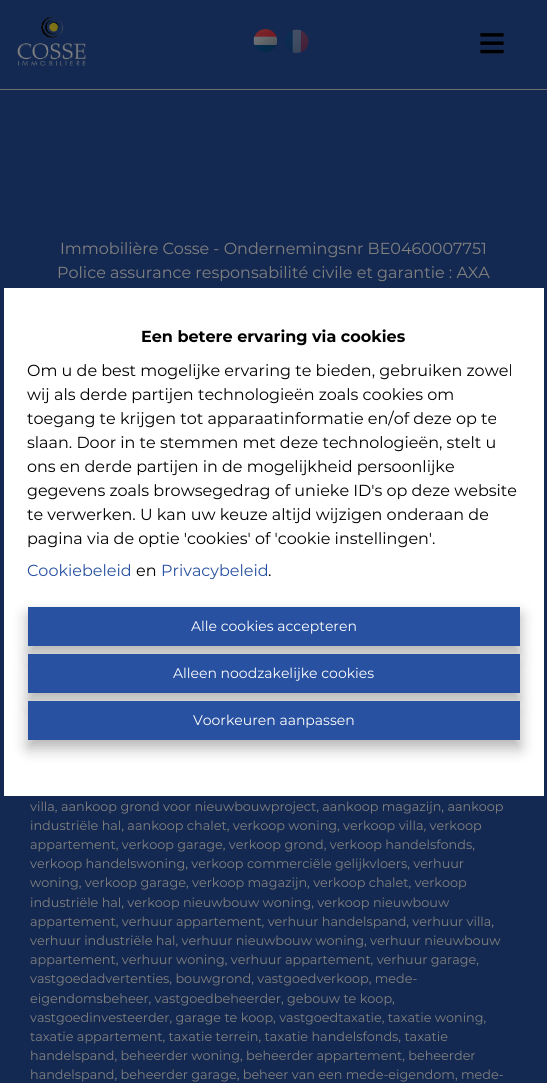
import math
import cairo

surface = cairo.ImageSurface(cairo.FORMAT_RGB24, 547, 1083)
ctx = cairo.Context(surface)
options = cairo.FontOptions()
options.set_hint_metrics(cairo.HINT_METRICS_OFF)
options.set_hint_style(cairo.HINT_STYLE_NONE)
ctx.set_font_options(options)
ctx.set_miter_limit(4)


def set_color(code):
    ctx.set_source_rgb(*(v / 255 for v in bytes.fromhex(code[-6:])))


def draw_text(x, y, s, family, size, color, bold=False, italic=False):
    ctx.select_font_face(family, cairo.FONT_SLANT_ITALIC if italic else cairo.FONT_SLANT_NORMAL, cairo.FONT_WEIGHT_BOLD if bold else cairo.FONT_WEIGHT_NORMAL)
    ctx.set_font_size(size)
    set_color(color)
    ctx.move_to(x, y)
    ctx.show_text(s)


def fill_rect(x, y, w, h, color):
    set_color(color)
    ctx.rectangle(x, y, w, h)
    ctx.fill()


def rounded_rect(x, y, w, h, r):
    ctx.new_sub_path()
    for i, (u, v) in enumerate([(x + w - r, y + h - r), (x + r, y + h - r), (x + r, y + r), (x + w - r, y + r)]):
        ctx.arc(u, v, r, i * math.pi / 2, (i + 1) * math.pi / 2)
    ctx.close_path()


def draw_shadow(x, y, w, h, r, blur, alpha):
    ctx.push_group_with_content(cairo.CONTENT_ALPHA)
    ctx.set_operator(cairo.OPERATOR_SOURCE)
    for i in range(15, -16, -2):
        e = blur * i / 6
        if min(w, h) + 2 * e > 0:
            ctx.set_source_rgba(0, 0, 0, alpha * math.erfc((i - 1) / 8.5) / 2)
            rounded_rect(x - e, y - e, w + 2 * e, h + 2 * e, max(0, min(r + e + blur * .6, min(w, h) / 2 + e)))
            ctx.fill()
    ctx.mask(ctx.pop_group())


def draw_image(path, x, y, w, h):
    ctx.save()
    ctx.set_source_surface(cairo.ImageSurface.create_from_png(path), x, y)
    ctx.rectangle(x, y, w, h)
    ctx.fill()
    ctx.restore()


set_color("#142951")
ctx.paint()
fill_rect(0, 89, 547, 1, "#6f6f6f")
draw_image("assets/img1.png", 17, 16, 70, 50)
draw_image("assets/img2.png", 253, 29, 24, 24)
draw_image("assets/img3.png", 285, 29, 24, 24)
draw_text(478, 59, "≡", "Liberation Sans", 48, "#000000")
draw_text(60, 254, "Immobilière Cosse - Ondernemingsnr BE0460007751", "Montserrat", 16, "#808080")
draw_text(57, 278, "Police assurance responsabilité civile et garantie : AXA", "Montserrat", 16, "#808080")
draw_text(30, 811, "villa, aankoop grond voor nieuwbouwproject, aankoop magazijn, aankoop", "Montserrat", 12.8, "#808080")
draw_text(30, 830, "industriële hal, aankoop chalet, verkoop woning, verkoop villa, verkoop", "Montserrat", 12.8, "#808080")
draw_text(30, 849, "appartement, verkoop garage, verkoop grond, verkoop handelsfonds,", "Montserrat", 12.8, "#808080")
draw_text(30, 868, "verkoop handelswoning, verkoop commerciële gelijkvloers, verhuur", "Montserrat", 12.8, "#808080")
draw_text(30, 887, "woning, verkoop garage, verkoop magazijn, verkoop chalet, verkoop", "Montserrat", 12.8, "#808080")
draw_text(30, 907, "industriële hal, verkoop nieuwbouw woning, verkoop nieuwbouw", "Montserrat", 12.8, "#808080")
draw_text(30, 926, "appartement, verhuur appartement, verhuur handelspand, verhuur villa,", "Montserrat", 12.8, "#808080")
draw_text(30, 945, "verhuur industriële hal, verhuur nieuwbouw woning, verhuur nieuwbouw", "Montserrat", 12.8, "#808080")
draw_text(30, 964, "appartement, verhuur woning, verhuur appartement, verhuur garage,", "Montserrat", 12.8, "#808080")
draw_text(30, 983, "vastgoedadvertenties, bouwgrond, vastgoedverkoop, mede-", "Montserrat", 12.8, "#808080")
draw_text(30, 1003, "eigendomsbeheer, vastgoedbeheerder, gebouw te koop,", "Montserrat", 12.8, "#808080")
draw_text(30, 1022, "vastgoedinvesteerder, garage te koop, vastgoedtaxatie, taxatie woning,", "Montserrat", 12.8, "#808080")
draw_text(30, 1041, "taxatie appartement, taxatie terrein, taxatie handelsfonds, taxatie", "Montserrat", 12.8, "#808080")
draw_text(30, 1060, "handelspand, beheerder woning, beheerder appartement, beheerder", "Montserrat", 12.8, "#808080")
draw_text(30, 1079, "handelspand, beheerder garage, beheer van een mede-eigendom, mede-", "Montserrat", 12.8, "#808080")
fill_rect(4, 288, 540, 508, "#ffffff")
draw_text(141, 342, "Een betere ervaring via cookies", "Montserrat", 16, "#000000", bold=True)
draw_text(27, 376, "Om u de best mogelijke ervaring te bieden, gebruiken zowel", "Montserrat", 16, "#000000")
draw_text(27, 400, "wij als derde partijen technologieën zoals cookies om", "Montserrat", 16, "#000000")
draw_text(27, 424, "toegang te krijgen tot apparaatinformatie en/of deze op te", "Montserrat", 16, "#000000")
draw_text(27, 448, "slaan. Door in te stemmen met deze technologieën, stelt u", "Montserrat", 16, "#000000")
draw_text(27, 472, "ons en derde partijen in de mogelijkheid persoonlijke", "Montserrat", 16, "#000000")
draw_text(27, 496, "gegevens zoals browsegedrag of unieke ID's op deze website", "Montserrat", 16, "#000000")
draw_text(27, 520, "te verwerken. U kan uw keuze altijd wijzigen onderaan de", "Montserrat", 16, "#000000")
draw_text(27, 544, "pagina via de optie 'cookies' of 'cookie instellingen'.", "Montserrat", 16, "#000000")
draw_text(27, 576, "Cookiebeleid", "Montserrat", 16, "#2851a1")
draw_text(136, 576, "en", "Montserrat", 16, "#000000")
draw_text(161, 576, "Privacybeleid", "Montserrat", 16, "#2851a1")
draw_text(268, 576, ".", "Montserrat", 16, "#000000")
set_color("#000000")
draw_shadow(28, 615, 492, 39, 0, 7.5, 0.3)
fill_rect(28, 607, 492, 39, "#2851a1")
draw_text(191, 631, "Alle cookies accepteren", "Montserrat", 14, "#ffffff")
set_color("#000000")
draw_shadow(28, 662, 492, 39, 0, 7.5, 0.3)
fill_rect(28, 654, 492, 39, "#2851a1")
draw_text(173, 678, "Alleen noodzakelijke cookies", "Montserrat", 14, "#ffffff")
set_color("#000000")
draw_shadow(28, 709, 492, 39, 0, 7.5, 0.3)
fill_rect(28, 701, 492, 39, "#2851a1")
draw_text(193, 725, "Voorkeuren aanpassen", "Montserrat", 14, "#ffffff")
surface.write_to_png("output.png")
